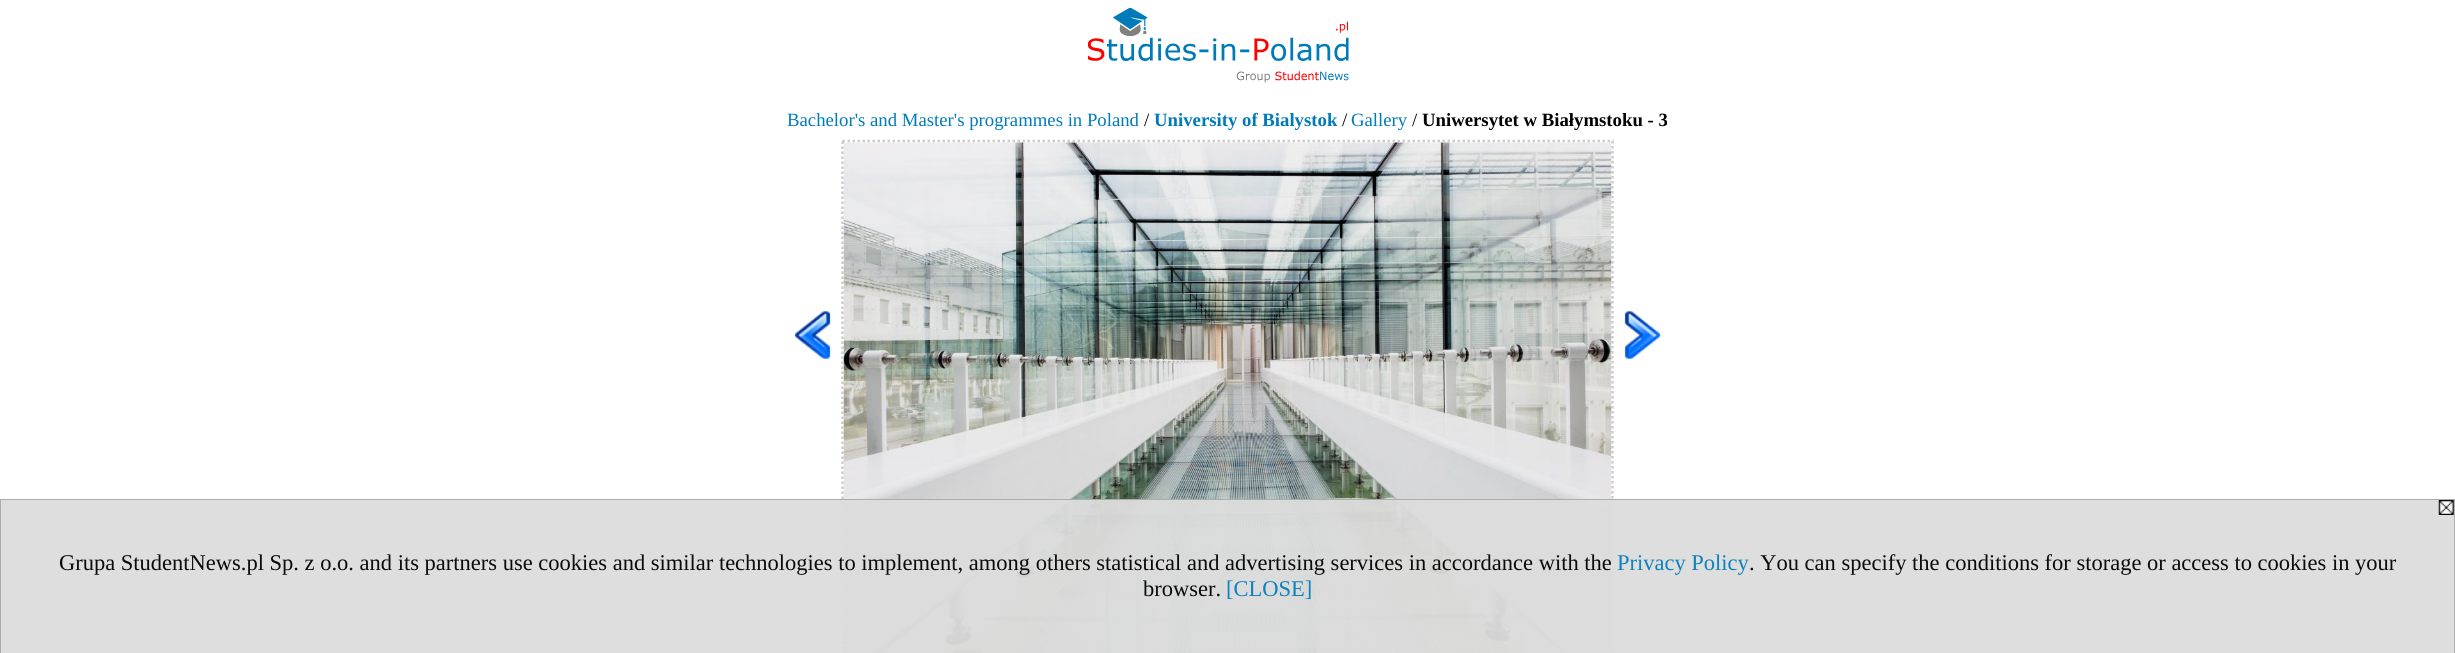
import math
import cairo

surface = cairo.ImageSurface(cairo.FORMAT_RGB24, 2455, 653)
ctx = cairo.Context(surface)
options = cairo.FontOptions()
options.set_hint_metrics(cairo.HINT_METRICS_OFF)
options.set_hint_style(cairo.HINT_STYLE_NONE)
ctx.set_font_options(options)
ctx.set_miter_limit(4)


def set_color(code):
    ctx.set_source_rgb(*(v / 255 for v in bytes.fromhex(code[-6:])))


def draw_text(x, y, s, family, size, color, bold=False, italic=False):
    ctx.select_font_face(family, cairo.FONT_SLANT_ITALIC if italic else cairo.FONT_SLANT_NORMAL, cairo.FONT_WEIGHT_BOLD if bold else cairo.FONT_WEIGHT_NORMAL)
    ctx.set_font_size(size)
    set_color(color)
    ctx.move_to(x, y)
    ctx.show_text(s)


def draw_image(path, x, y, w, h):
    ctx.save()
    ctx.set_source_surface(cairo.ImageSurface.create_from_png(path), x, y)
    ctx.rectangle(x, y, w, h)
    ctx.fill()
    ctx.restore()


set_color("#ffffff")
ctx.paint()
draw_image("assets/img1.png", 1088, 8, 261, 75)
draw_text(787, 126, "Bachelor's and Master's programmes in Poland", "Liberation Serif", 18.75, "#007bba")
draw_text(1144, 126, "/", "Liberation Serif", 18.75, "#000000")
draw_text(1154, 126, "University of Bialystok", "Liberation Serif", 18.75, "#007bba", bold=True)
draw_text(1342, 126, "/", "Liberation Serif", 18.75, "#000000")
draw_text(1351, 126, "Gallery", "Liberation Serif", 18.75, "#007bba")
draw_text(1412, 126, "/", "Liberation Serif", 18.75, "#000000")
draw_text(1422, 126, "Uniwersytet w Białymstoku - 3", "Liberation Serif", 18.75, "#000000", bold=True)
draw_image("assets/img3.png", 843, 142, 769, 511)
ctx.new_path()
ctx.move_to(842.5, 141)
ctx.line_to(1612.5, 141)
ctx.line_to(1612.5, 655)
ctx.line_to(842.5, 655)
ctx.close_path()
set_color("#cccccc")
ctx.set_line_width(2.5)
ctx.set_dash([2.5, 2.5])
ctx.stroke()
draw_image("assets/img2.png", 794, 311, 37, 48)
draw_image("assets/img4.png", 1624, 311, 37, 48)
ctx.set_source_rgba(0.867, 0.867, 0.867, 0.95)
ctx.rectangle(0, 499, 2455, 154)
ctx.fill()
ctx.rectangle(0.5, 499.5, 2454, 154)
ctx.set_source_rgba(0.667, 0.667, 0.667, 0.95)
ctx.set_line_width(1)
ctx.set_dash([])
ctx.stroke()
draw_image("assets/img5.png", 2438, 500, 16, 15)
draw_text(59, 570, "Grupa StudentNews.pl Sp. z o.o. and its partners use cookies and similar technologies to implement, among others statistical and advertising services in accordance with the", "Liberation Serif", 22.5, "#0b0b0b")
draw_text(1617, 570, "Privacy Policy", "Liberation Serif", 22.5, "#0d82bd")
draw_text(1749, 570, ". You can specify the conditions for storage or access to cookies in your", "Liberation Serif", 22.5, "#0b0b0b")
draw_text(1143, 596, "browser.", "Liberation Serif", 22.5, "#0b0b0b")
draw_text(1226, 596, "[CLOSE]", "Liberation Serif", 22.5, "#0d82bd")
surface.write_to_png("output.png")
